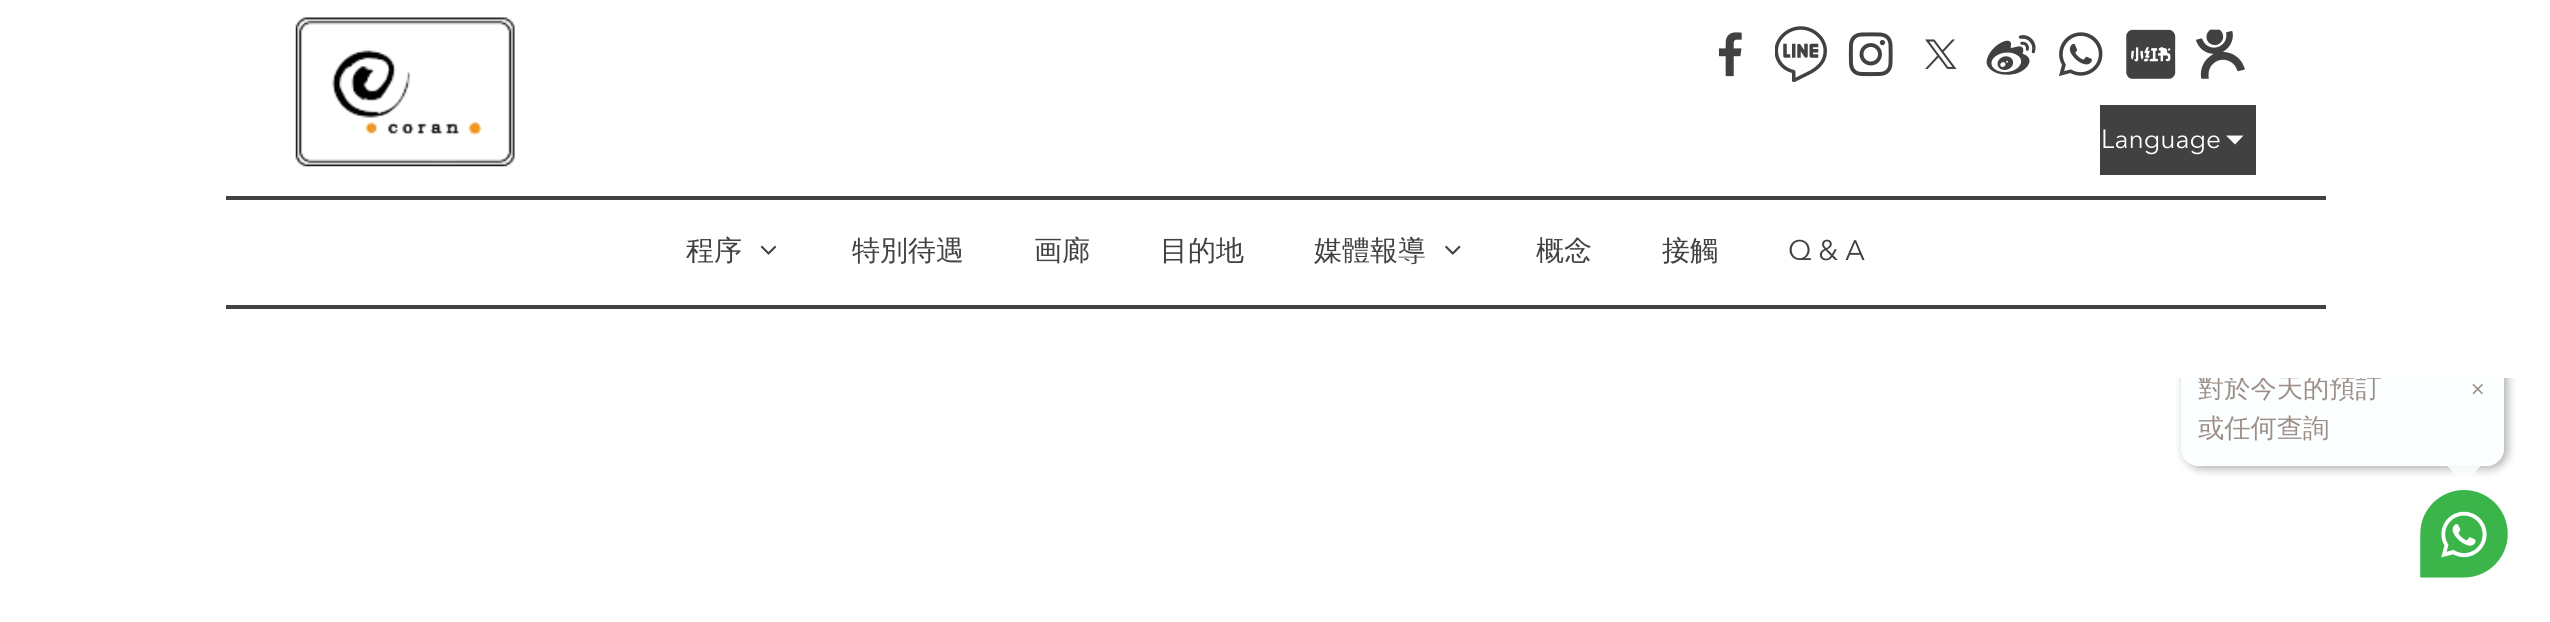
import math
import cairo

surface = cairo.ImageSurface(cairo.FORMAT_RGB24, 2550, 622)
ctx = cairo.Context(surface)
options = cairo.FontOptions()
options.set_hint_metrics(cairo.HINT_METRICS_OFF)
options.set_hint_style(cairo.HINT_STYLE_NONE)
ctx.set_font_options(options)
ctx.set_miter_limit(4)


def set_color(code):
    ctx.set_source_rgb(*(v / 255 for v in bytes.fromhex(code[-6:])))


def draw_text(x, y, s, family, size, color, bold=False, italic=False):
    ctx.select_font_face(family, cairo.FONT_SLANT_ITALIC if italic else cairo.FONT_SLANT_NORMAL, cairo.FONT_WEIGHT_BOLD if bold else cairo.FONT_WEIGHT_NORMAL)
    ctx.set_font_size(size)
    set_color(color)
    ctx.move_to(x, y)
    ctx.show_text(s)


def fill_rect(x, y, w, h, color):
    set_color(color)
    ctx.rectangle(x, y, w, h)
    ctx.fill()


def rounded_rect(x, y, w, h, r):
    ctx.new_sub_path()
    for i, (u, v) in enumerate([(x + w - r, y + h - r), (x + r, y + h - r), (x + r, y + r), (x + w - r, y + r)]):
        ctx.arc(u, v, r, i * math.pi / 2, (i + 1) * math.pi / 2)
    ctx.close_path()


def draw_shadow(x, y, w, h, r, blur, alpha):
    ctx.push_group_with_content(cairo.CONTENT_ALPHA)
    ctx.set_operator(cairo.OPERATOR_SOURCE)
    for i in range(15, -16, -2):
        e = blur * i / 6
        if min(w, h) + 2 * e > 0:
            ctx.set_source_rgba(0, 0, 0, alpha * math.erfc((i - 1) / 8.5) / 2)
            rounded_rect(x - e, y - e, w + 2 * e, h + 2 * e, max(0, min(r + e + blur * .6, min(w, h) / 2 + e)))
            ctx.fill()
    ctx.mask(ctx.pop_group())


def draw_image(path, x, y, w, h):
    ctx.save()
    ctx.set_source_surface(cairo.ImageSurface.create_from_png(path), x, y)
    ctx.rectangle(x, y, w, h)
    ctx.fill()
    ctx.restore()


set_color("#ffffff")
ctx.paint()
ctx.save()
ctx.set_fill_rule(cairo.FILL_RULE_EVEN_ODD)
ctx.new_path()
ctx.move_to(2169, 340)
ctx.line_to(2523, 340)
ctx.line_to(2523, 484)
ctx.line_to(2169, 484)
ctx.close_path()
ctx.move_to(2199, 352)
ctx.line_to(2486, 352)
ctx.curve_to(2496, 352, 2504, 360, 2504, 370)
ctx.line_to(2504, 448)
ctx.curve_to(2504, 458, 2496, 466, 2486, 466)
ctx.line_to(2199, 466)
ctx.curve_to(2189, 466, 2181, 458, 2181, 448)
ctx.line_to(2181, 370)
ctx.curve_to(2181, 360, 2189, 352, 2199, 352)
ctx.close_path()
ctx.clip()
set_color("#000000")
draw_shadow(2184, 355, 324, 114, 18, 4.5, 0.3)
ctx.restore()
ctx.set_source_rgba(0.98, 1, 1, 0.85)
rounded_rect(2181, 352, 323, 114, 18)
ctx.fill()
draw_text(2198, 397, "對於今天的預訂", "WenQuanYi Zen Hei Medium", 26.25, "#9d8e87")
fill_rect(2176, 347, 340, 31, "#ffffff")
draw_image("assets/img1.png", 295, 17, 220, 150)
draw_image("assets/img2.png", 1718, 32, 24, 45)
draw_image("assets/img3.png", 1775, 26, 52, 56)
draw_image("assets/img4.png", 1848, 32, 45, 45)
draw_image("assets/img5.png", 1925, 39, 32, 30)
draw_image("assets/img6.png", 1986, 35, 50, 40)
draw_image("assets/img7.png", 2059, 32, 44, 44)
draw_image("assets/img8.png", 2126, 29, 50, 50)
draw_image("assets/img9.png", 2196, 29, 49, 50)
fill_rect(2100, 105, 156, 70, "#414141")
draw_text(2101, 148, "Language", "Avenir Next", 26.25, "#ffffff")
ctx.new_path()
ctx.move_to(2226, 135.5)
ctx.line_to(2243.5, 135.5)
ctx.line_to(2235, 144.5)
ctx.close_path()
ctx.fill()
fill_rect(226, 196, 2100, 4, "#414141")
fill_rect(226, 305, 2100, 4, "#414141")
draw_text(686, 260, "程序", "WenQuanYi Zen Hei Medium", 28, "#414141")
draw_image("assets/img10.png", 760, 245, 17, 10)
draw_text(852, 260, "特別待遇", "WenQuanYi Zen Hei Medium", 28, "#414141")
draw_text(1034, 260, "画廊", "WenQuanYi Zen Hei Medium", 28, "#414141")
draw_text(1160, 260, "目的地", "WenQuanYi Zen Hei Medium", 28, "#414141")
draw_text(1314, 260, "媒體報導", "WenQuanYi Zen Hei Medium", 28, "#414141")
draw_image("assets/img11.png", 1445, 245, 16, 10)
draw_text(1536, 260, "概念", "WenQuanYi Zen Hei Medium", 28, "#414141")
draw_text(1662, 260, "接觸", "WenQuanYi Zen Hei Medium", 28, "#414141")
draw_text(1788, 260, "Q & A", "Avenir Next", 28, "#414141")
draw_text(2198, 437, "或任何查詢", "WenQuanYi Zen Hei Medium", 26.25, "#9d8e87")
draw_text(2469, 397, "×", "Avenir Next", 26.25, "#9d8e87")
ctx.set_source_rgba(0.98, 1, 1, 0.85)
ctx.new_path()
ctx.move_to(2446.5, 465.5)
ctx.line_to(2481.5, 465.5)
ctx.line_to(2464, 483)
ctx.close_path()
ctx.fill()
draw_image("assets/img12.png", 2420, 490, 88, 88)
surface.write_to_png("output.png")
